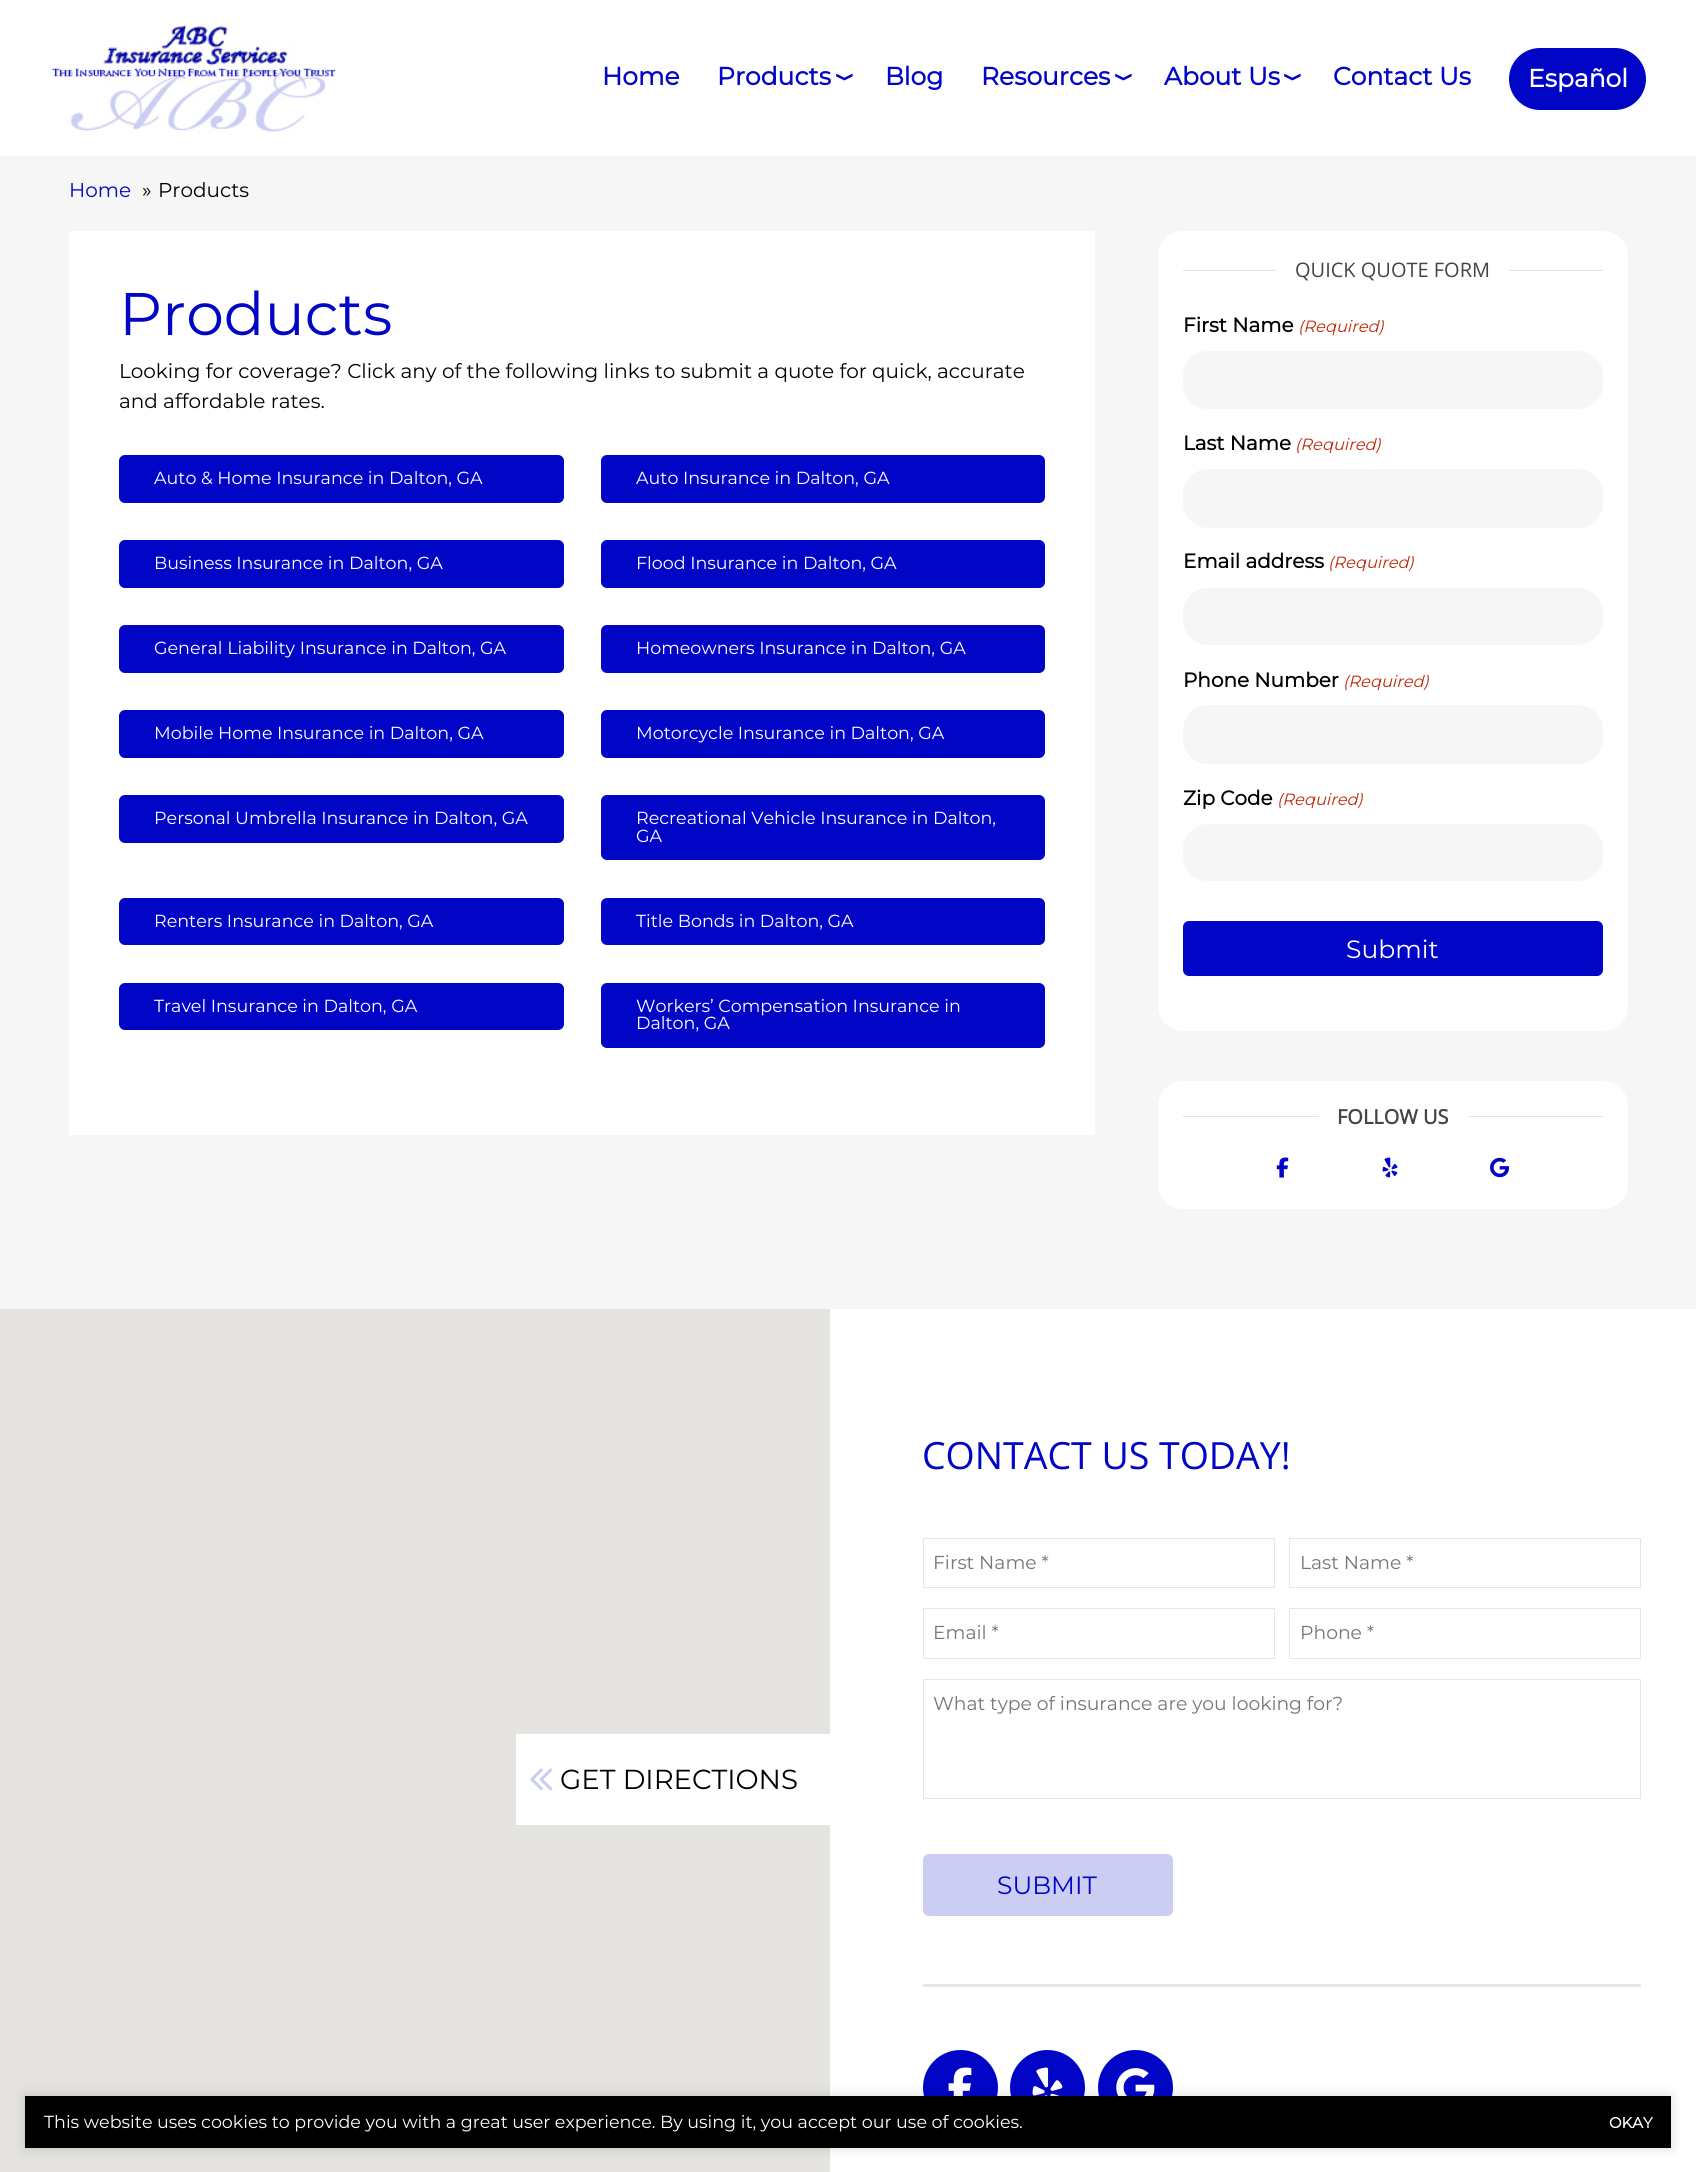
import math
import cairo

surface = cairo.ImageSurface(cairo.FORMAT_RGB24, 1696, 2172)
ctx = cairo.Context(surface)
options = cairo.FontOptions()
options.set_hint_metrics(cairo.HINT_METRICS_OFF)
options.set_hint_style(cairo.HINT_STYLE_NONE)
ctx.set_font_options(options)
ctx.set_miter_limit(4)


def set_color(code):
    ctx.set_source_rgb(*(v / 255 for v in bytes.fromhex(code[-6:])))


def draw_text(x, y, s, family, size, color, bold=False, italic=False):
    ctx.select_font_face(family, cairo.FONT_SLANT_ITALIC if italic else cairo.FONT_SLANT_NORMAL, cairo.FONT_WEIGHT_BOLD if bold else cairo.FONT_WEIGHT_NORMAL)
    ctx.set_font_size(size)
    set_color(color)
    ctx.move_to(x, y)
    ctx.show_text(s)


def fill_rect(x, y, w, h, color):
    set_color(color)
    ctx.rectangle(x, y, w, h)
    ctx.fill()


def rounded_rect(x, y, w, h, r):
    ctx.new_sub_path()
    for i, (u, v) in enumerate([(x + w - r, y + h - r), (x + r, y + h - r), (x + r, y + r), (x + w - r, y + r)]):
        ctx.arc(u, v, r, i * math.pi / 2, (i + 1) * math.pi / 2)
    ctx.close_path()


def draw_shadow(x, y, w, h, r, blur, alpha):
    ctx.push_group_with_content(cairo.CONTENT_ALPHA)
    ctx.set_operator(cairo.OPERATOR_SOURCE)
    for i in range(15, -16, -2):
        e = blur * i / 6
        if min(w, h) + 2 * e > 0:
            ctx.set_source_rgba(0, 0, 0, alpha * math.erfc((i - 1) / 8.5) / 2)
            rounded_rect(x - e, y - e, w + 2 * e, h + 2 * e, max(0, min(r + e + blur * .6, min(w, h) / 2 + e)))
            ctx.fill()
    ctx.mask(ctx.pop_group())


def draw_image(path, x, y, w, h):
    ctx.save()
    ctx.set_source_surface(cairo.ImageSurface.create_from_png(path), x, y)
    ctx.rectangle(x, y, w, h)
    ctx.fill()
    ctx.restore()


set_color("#ffffff")
ctx.paint()
draw_image("assets/img1.png", 51, 25, 285, 107)
draw_text(602, 85, "Home", "Montserrat", 25, "#0105c6", bold=True)
draw_text(717, 85, "Products", "Montserrat", 25, "#0105c6", bold=True)
ctx.save()
ctx.translate(840, 70)
ctx.rotate(90 * math.pi / 180)
draw_text(0, 0, "❭", "DejaVu Sans", 16, "#0105c6", bold=True)
ctx.restore()
draw_text(885, 85, "Blog", "Montserrat", 25, "#0105c6", bold=True)
draw_text(981, 85, "Resources", "Montserrat", 25, "#0105c6", bold=True)
ctx.save()
ctx.translate(1119, 70)
ctx.rotate(90 * math.pi / 180)
draw_text(0, 0, "❭", "DejaVu Sans", 16, "#0105c6", bold=True)
ctx.restore()
draw_text(1164, 85, "About Us", "Montserrat", 25, "#0105c6", bold=True)
ctx.save()
ctx.translate(1288, 70)
ctx.rotate(90 * math.pi / 180)
draw_text(0, 0, "❭", "DejaVu Sans", 16, "#0105c6", bold=True)
ctx.restore()
draw_text(1333, 85, "Contact Us", "Montserrat", 25, "#0105c6", bold=True)
rounded_rect(1509, 48, 137, 62, 31)
ctx.fill()
draw_text(1528, 87, "Español", "Montserrat", 25, "#ffffff", bold=True)
fill_rect(0, 156, 1696, 1153, "#f6f6f6")
draw_text(69, 197, "Home", "Montserrat Thin", 20, "#0105c6")
draw_text(142, 197, "»", "Montserrat Thin", 20, "#000000")
draw_text(158, 197, "Products", "Montserrat Thin", 20, "#000000")
fill_rect(69, 231, 1026, 904, "#ffffff")
draw_text(119, 335, "Products", "Montserrat Thin", 60, "#0105c6")
draw_text(119, 378, "Looking for coverage? Click any of the following links to submit a quote for quick, accurate", "Montserrat Thin", 20, "#000000")
draw_text(119, 408, "and affordable rates.", "Montserrat Thin", 20, "#000000")
set_color("#0105c6")
rounded_rect(119, 455, 445, 48, 6)
ctx.fill()
draw_text(154, 484, "Auto & Home Insurance in Dalton, GA", "Montserrat Thin", 17.5, "#ffffff")
set_color("#0105c6")
rounded_rect(601, 455, 444, 48, 6)
ctx.fill()
draw_text(636, 484, "Auto Insurance in Dalton, GA", "Montserrat Thin", 17.5, "#ffffff")
set_color("#0105c6")
rounded_rect(119, 540, 445, 48, 6)
ctx.fill()
draw_text(154, 569, "Business Insurance in Dalton, GA", "Montserrat Thin", 17.5, "#ffffff")
set_color("#0105c6")
rounded_rect(601, 540, 444, 48, 6)
ctx.fill()
draw_text(636, 569, "Flood Insurance in Dalton, GA", "Montserrat Thin", 17.5, "#ffffff")
set_color("#0105c6")
rounded_rect(119, 625, 445, 48, 6)
ctx.fill()
draw_text(154, 654, "General Liability Insurance in Dalton, GA", "Montserrat Thin", 17.5, "#ffffff")
set_color("#0105c6")
rounded_rect(601, 625, 444, 48, 6)
ctx.fill()
draw_text(636, 654, "Homeowners Insurance in Dalton, GA", "Montserrat Thin", 17.5, "#ffffff")
set_color("#0105c6")
rounded_rect(119, 710, 445, 48, 6)
ctx.fill()
draw_text(154, 739, "Mobile Home Insurance in Dalton, GA", "Montserrat Thin", 17.5, "#ffffff")
set_color("#0105c6")
rounded_rect(601, 710, 444, 48, 6)
ctx.fill()
draw_text(636, 739, "Motorcycle Insurance in Dalton, GA", "Montserrat Thin", 17.5, "#ffffff")
set_color("#0105c6")
rounded_rect(119, 795, 445, 48, 6)
ctx.fill()
draw_text(154, 824, "Personal Umbrella Insurance in Dalton, GA", "Montserrat Thin", 17.5, "#ffffff")
set_color("#0105c6")
rounded_rect(601, 795, 444, 65, 6)
ctx.fill()
draw_text(636, 824, "Recreational Vehicle Insurance in Dalton,", "Montserrat Thin", 17.5, "#ffffff")
draw_text(636, 842, "GA", "Montserrat Thin", 17.5, "#ffffff")
set_color("#0105c6")
rounded_rect(119, 898, 445, 47, 6)
ctx.fill()
draw_text(154, 927, "Renters Insurance in Dalton, GA", "Montserrat Thin", 17.5, "#ffffff")
set_color("#0105c6")
rounded_rect(601, 898, 444, 47, 6)
ctx.fill()
draw_text(636, 927, "Title Bonds in Dalton, GA", "Montserrat Thin", 17.5, "#ffffff")
set_color("#0105c6")
rounded_rect(119, 983, 445, 47, 6)
ctx.fill()
draw_text(154, 1012, "Travel Insurance in Dalton, GA", "Montserrat Thin", 17.5, "#ffffff")
set_color("#0105c6")
rounded_rect(601, 983, 444, 65, 6)
ctx.fill()
draw_text(636, 1012, "Workers’ Compensation Insurance in", "Montserrat Thin", 17.5, "#ffffff")
draw_text(636, 1029, "Dalton, GA", "Montserrat Thin", 17.5, "#ffffff")
rounded_rect(1158, 231, 470, 800, 25)
ctx.fill()
fill_rect(1183, 270, 420, 1, "#e3e3e3")
fill_rect(1276, 270, 233, 1, "#ffffff")
draw_text(1295, 277, "QUICK QUOTE FORM", "Open Sans", 20, "#444546")
draw_text(1183, 332, "First Name", "Montserrat", 20, "#000000", bold=True)
draw_text(1298, 332, "(Required)", "Montserrat Thin", 16.25, "#c02b0a", italic=True)
set_color("#f6f6f6")
rounded_rect(1183, 351, 420, 58, 25)
ctx.fill()
draw_text(1183, 450, "Last Name", "Montserrat", 20, "#000000", bold=True)
draw_text(1295, 450, "(Required)", "Montserrat Thin", 16.25, "#c02b0a", italic=True)
set_color("#f6f6f6")
rounded_rect(1183, 469, 420, 59, 25)
ctx.fill()
draw_text(1183, 568, "Email address", "Montserrat", 20, "#000000", bold=True)
draw_text(1328, 568, "(Required)", "Montserrat Thin", 16.25, "#c02b0a", italic=True)
set_color("#f6f6f6")
rounded_rect(1183, 588, 420, 57, 25)
ctx.fill()
draw_text(1183, 687, "Phone Number", "Montserrat", 20, "#000000", bold=True)
draw_text(1343, 687, "(Required)", "Montserrat Thin", 16.25, "#c02b0a", italic=True)
set_color("#f6f6f6")
rounded_rect(1183, 705, 420, 59, 25)
ctx.fill()
draw_text(1183, 805, "Zip Code", "Montserrat", 20, "#000000", bold=True)
draw_text(1277, 805, "(Required)", "Montserrat Thin", 16.25, "#c02b0a", italic=True)
set_color("#f6f6f6")
rounded_rect(1183, 824, 420, 57, 25)
ctx.fill()
set_color("#0105c6")
rounded_rect(1183, 921, 420, 55, 6)
ctx.fill()
draw_text(1346, 958, "Submit", "Montserrat Thin", 25, "#ffffff")
rounded_rect(1158, 1081, 470, 128, 25)
ctx.fill()
fill_rect(1183, 1116, 420, 1, "#e3e3e3")
fill_rect(1319, 1116, 149, 1, "#ffffff")
draw_text(1337, 1124, "FOLLOW US", "Open Sans", 20, "#444546", bold=True)
draw_image("assets/img2.png", 1276, 1157, 13, 21)
draw_image("assets/img3.png", 1382, 1157, 16, 21)
draw_image("assets/img4.png", 1490, 1157, 20, 21)
fill_rect(0, 1309, 830, 863, "#e5e3df")
fill_rect(516, 1734, 314, 91, "#ffffff")
draw_image("assets/img5.png", 530, 1768, 23, 23)
draw_text(560, 1789, "GET DIRECTIONS", "Montserrat Thin", 27.5, "#000000")
draw_text(922, 1469, "CONTACT US TODAY!", "Open Sans", 37.5, "#0105c6")
ctx.rectangle(923.5, 1538.5, 351, 49)
set_color("#e6e6e6")
ctx.set_line_width(1)
ctx.stroke()
draw_text(933, 1569, "First Name *", "Montserrat Thin", 18.75, "#757575")
ctx.rectangle(1289.5, 1538.5, 351, 49)
set_color("#e6e6e6")
ctx.stroke()
draw_text(1300, 1569, "Last Name *", "Montserrat Thin", 18.75, "#757575")
ctx.rectangle(923.5, 1608.5, 351, 50)
set_color("#e6e6e6")
ctx.stroke()
draw_text(933, 1639, "Email *", "Montserrat Thin", 18.75, "#757575")
ctx.rectangle(1289.5, 1608.5, 351, 50)
set_color("#e6e6e6")
ctx.stroke()
draw_text(1300, 1639, "Phone *", "Montserrat Thin", 18.75, "#757575")
ctx.rectangle(923.5, 1679.5, 717, 119)
set_color("#e6e6e6")
ctx.stroke()
draw_text(933, 1710, "What type of insurance are you looking for?", "Montserrat Thin", 18.75, "#757575")
set_color("#cbcdf3")
rounded_rect(923, 1854, 250, 62, 6)
ctx.fill()
draw_text(997, 1894, "SUBMIT", "Montserrat Thin", 25, "#0105c6")
fill_rect(923, 1984, 718, 3, "#e6e6e6")
set_color("#0105c6")
ctx.new_path()
ctx.arc(960.5, 2087.5, 37.5, 0, 2 * math.pi)
ctx.fill()
draw_image("assets/img6.png", 948, 2067, 24, 29)
ctx.arc(1047.5, 2087.5, 37.5, 0, 2 * math.pi)
ctx.fill()
draw_image("assets/img7.png", 1032, 2067, 31, 29)
ctx.arc(1135.5, 2087.5, 37.5, 0, 2 * math.pi)
ctx.fill()
draw_image("assets/img8.png", 1116, 2068, 39, 28)
set_color("#000000")
draw_shadow(25, 2096, 1646, 52, 0, 6, 0.15)
fill_rect(25, 2096, 1646, 52, "#000000")
draw_text(44, 2128, "This website uses cookies to provide you with a great user experience. By using it, you accept our use of cookies.", "Montserrat Thin", 17.5, "#ffffff")
draw_text(1609, 2128, "OKAY", "Montserrat", 15, "#ffffff", bold=True)
surface.write_to_png("output.png")
